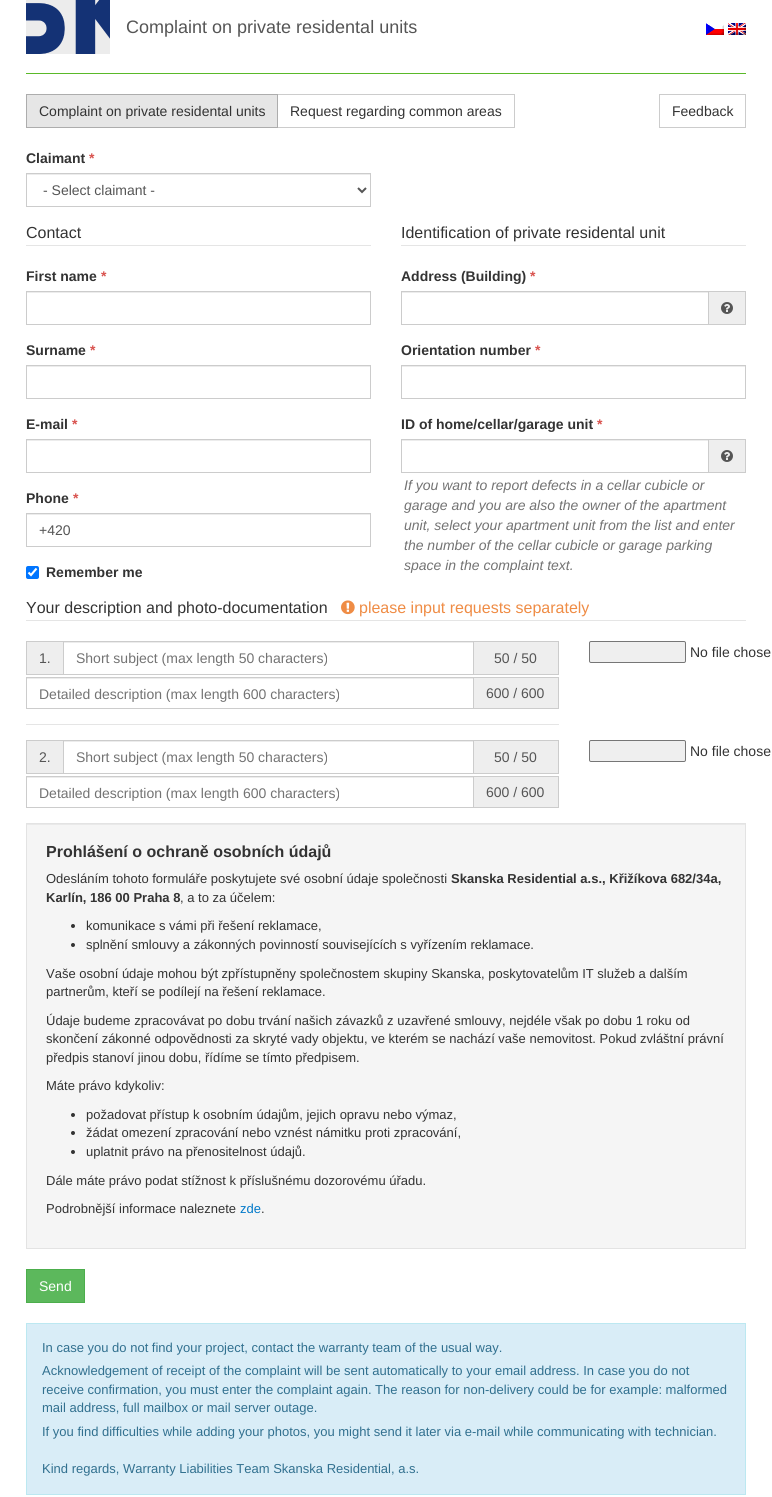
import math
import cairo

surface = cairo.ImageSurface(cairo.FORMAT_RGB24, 772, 1497)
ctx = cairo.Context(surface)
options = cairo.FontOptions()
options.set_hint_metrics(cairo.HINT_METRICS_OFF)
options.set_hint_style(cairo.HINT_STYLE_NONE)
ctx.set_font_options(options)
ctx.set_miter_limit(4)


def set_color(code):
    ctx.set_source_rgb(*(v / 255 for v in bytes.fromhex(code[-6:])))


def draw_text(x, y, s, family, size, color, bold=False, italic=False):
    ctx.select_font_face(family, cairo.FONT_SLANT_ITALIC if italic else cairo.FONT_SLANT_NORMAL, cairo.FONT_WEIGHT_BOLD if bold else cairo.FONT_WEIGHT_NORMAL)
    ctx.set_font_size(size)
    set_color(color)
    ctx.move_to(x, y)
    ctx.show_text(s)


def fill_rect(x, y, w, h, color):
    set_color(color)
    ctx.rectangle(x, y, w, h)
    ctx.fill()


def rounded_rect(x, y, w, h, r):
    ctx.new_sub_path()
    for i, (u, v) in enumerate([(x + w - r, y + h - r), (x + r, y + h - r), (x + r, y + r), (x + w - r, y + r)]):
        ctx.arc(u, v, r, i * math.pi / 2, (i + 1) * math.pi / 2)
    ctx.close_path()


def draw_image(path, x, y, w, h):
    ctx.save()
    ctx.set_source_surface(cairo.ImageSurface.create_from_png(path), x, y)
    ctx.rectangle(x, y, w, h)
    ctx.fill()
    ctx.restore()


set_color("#ffffff")
ctx.paint()
draw_image("assets/img1.png", 26, 0, 84, 54)
fill_rect(26, 73, 720, 1, "#5ab929")
draw_text(126, 33, "Complaint on private residental units", "Liberation Sans", 18, "#555555")
draw_image("assets/img2.png", 706, 23, 18, 12)
draw_image("assets/img3.png", 728, 23, 18, 12)
ctx.rectangle(277.5, 94.5, 237, 33)
set_color("#cccccc")
ctx.set_line_width(1)
ctx.stroke()
set_color("#e6e6e6")
ctx.rectangle(26.5, 94.5, 251, 33)
ctx.fill_preserve()
set_color("#adadad")
ctx.stroke()
draw_text(39, 116, "Complaint on private residental units", "Liberation Sans", 14, "#333333")
draw_text(290, 116, "Request regarding common areas", "Liberation Sans", 14, "#333333")
ctx.rectangle(659.5, 94.5, 86, 33)
set_color("#cccccc")
ctx.stroke()
draw_text(672, 116, "Feedback", "Liberation Sans", 14, "#333333")
draw_text(26, 163, "Claimant", "Liberation Sans", 14, "#333333", bold=True)
draw_text(89, 163, "*", "Liberation Sans", 14, "#d9534f", bold=True)
fill_rect(27, 174, 343, 1, "#ececec")
ctx.rectangle(26.5, 173.5, 344, 33)
set_color("#cccccc")
ctx.stroke()
ctx.new_path()
ctx.move_to(358, 188)
ctx.line_to(362, 192)
ctx.line_to(366, 188)
set_color("#555555")
ctx.set_line_width(2)
ctx.stroke()
draw_text(43, 195, "- Select claimant -", "Liberation Sans", 14, "#555555")
fill_rect(26, 245, 345, 1, "#e5e5e5")
draw_text(26, 238, "Contact", "Liberation Sans", 16, "#333333")
draw_text(26, 281, "First name", "Liberation Sans", 14, "#333333", bold=True)
draw_text(101, 281, "*", "Liberation Sans", 14, "#d9534f", bold=True)
fill_rect(27, 292, 343, 1, "#ececec")
ctx.rectangle(26.5, 291.5, 344, 33)
set_color("#cccccc")
ctx.set_line_width(1)
ctx.stroke()
draw_text(26, 355, "Surname", "Liberation Sans", 14, "#333333", bold=True)
draw_text(90, 355, "*", "Liberation Sans", 14, "#d9534f", bold=True)
fill_rect(27, 366, 343, 1, "#ececec")
ctx.rectangle(26.5, 365.5, 344, 33)
set_color("#cccccc")
ctx.stroke()
draw_text(26, 429, "E-mail", "Liberation Sans", 14, "#333333", bold=True)
draw_text(72, 429, "*", "Liberation Sans", 14, "#d9534f", bold=True)
fill_rect(27, 440, 343, 1, "#ececec")
ctx.rectangle(26.5, 439.5, 344, 33)
set_color("#cccccc")
ctx.stroke()
draw_text(26, 503, "Phone", "Liberation Sans", 14, "#333333", bold=True)
draw_text(73, 503, "*", "Liberation Sans", 14, "#d9534f", bold=True)
fill_rect(27, 514, 343, 1, "#ececec")
ctx.rectangle(26.5, 513.5, 344, 33)
set_color("#cccccc")
ctx.stroke()
draw_text(39, 535, "+420", "Liberation Sans", 14, "#555555")
set_color("#0075ff")
rounded_rect(26, 566, 13, 13, 2)
ctx.fill()
ctx.new_path()
ctx.move_to(28.5, 572.5)
ctx.line_to(31, 575)
ctx.line_to(36.5, 568.5)
set_color("#ffffff")
ctx.set_line_width(2.1)
ctx.stroke()
draw_text(46, 577, "Remember me", "Liberation Sans", 14, "#333333", bold=True)
fill_rect(401, 245, 345, 1, "#e5e5e5")
draw_text(401, 238, "Identification of private residental unit", "Liberation Sans", 16, "#333333")
draw_text(401, 281, "Address (Building)", "Liberation Sans", 14, "#333333", bold=True)
draw_text(530, 281, "*", "Liberation Sans", 14, "#d9534f", bold=True)
fill_rect(402, 292, 306, 1, "#ececec")
ctx.rectangle(401.5, 291.5, 307, 33)
set_color("#cccccc")
ctx.set_line_width(1)
ctx.stroke()
fill_rect(709, 292, 36, 32, "#eeeeee")
fill_rect(709, 291, 37, 1, "#cccccc")
fill_rect(745, 291, 1, 34, "#cccccc")
fill_rect(709, 324, 37, 1, "#cccccc")
draw_image("assets/img4.png", 721, 302, 12, 12)
draw_text(401, 355, "Orientation number", "Liberation Sans", 14, "#333333", bold=True)
draw_text(535, 355, "*", "Liberation Sans", 14, "#d9534f", bold=True)
fill_rect(402, 366, 343, 1, "#ececec")
ctx.rectangle(401.5, 365.5, 344, 33)
set_color("#cccccc")
ctx.stroke()
draw_text(401, 429, "ID of home/cellar/garage unit", "Liberation Sans", 14, "#333333", bold=True)
draw_text(597, 429, "*", "Liberation Sans", 14, "#d9534f", bold=True)
fill_rect(402, 440, 306, 1, "#ececec")
ctx.rectangle(401.5, 439.5, 307, 33)
set_color("#cccccc")
ctx.stroke()
fill_rect(709, 440, 36, 32, "#eeeeee")
fill_rect(709, 439, 37, 1, "#cccccc")
fill_rect(745, 439, 1, 34, "#cccccc")
fill_rect(709, 472, 37, 1, "#cccccc")
draw_image("assets/img4.png", 721, 450, 12, 12)
draw_text(404, 490, "If you want to report defects in a cellar cubicle or", "Liberation Sans", 14, "#737373", italic=True)
draw_text(404, 510, "garage and you are also the owner of the apartment", "Liberation Sans", 14, "#737373", italic=True)
draw_text(404, 530, "unit, select your apartment unit from the list and enter", "Liberation Sans", 14, "#737373", italic=True)
draw_text(404, 550, "the number of the cellar cubicle or garage parking", "Liberation Sans", 14, "#737373", italic=True)
draw_text(404, 570, "space in the complaint text.", "Liberation Sans", 14, "#737373", italic=True)
fill_rect(26, 620, 720, 1, "#e5e5e5")
draw_text(26, 613, "Your description and photo-documentation", "Liberation Sans", 16, "#333333")
draw_image("assets/img5.png", 341, 600, 14, 15)
draw_text(359, 613, "please input requests separately", "Liberation Sans", 16, "#ef8c45")
fill_rect(27, 642, 36, 32, "#eeeeee")
fill_rect(26, 641, 37, 1, "#cccccc")
fill_rect(26, 674, 37, 1, "#cccccc")
fill_rect(26, 641, 1, 34, "#cccccc")
draw_text(39, 663, "1.", "Liberation Sans", 14, "#555555")
fill_rect(64, 642, 409, 1, "#ececec")
ctx.rectangle(63.5, 641.5, 410, 33)
set_color("#cccccc")
ctx.stroke()
draw_text(76, 663, "Short subject (max length 50 characters)", "Liberation Sans", 14, "#737373")
fill_rect(474, 642, 84, 32, "#eeeeee")
fill_rect(474, 641, 85, 1, "#cccccc")
fill_rect(558, 641, 1, 34, "#cccccc")
fill_rect(474, 674, 85, 1, "#cccccc")
draw_text(494, 663, "50 / 50", "Liberation Sans", 14, "#555555")
fill_rect(27, 678, 446, 1, "#ececec")
ctx.rectangle(26.5, 677.5, 447, 31)
set_color("#cccccc")
ctx.stroke()
draw_text(39, 699, "Detailed description (max length 600 characters)", "Liberation Sans", 14, "#737373")
fill_rect(474, 678, 84, 30, "#eeeeee")
fill_rect(474, 677, 85, 1, "#cccccc")
fill_rect(558, 677, 1, 32, "#cccccc")
fill_rect(474, 708, 85, 1, "#cccccc")
draw_text(486, 698, "600 / 600", "Liberation Sans", 14, "#555555")
fill_rect(26, 724, 533, 1, "#e5e5e5")
set_color("#efefef")
rounded_rect(589.5, 641.5, 96, 21, 1.5)
ctx.fill_preserve()
set_color("#767676")
ctx.stroke()
draw_text(690, 657, "No file chose", "Liberation Sans", 14, "#333333")
fill_rect(27, 741, 36, 32, "#eeeeee")
fill_rect(26, 740, 37, 1, "#cccccc")
fill_rect(26, 773, 37, 1, "#cccccc")
fill_rect(26, 740, 1, 34, "#cccccc")
draw_text(39, 762, "2.", "Liberation Sans", 14, "#555555")
fill_rect(64, 741, 409, 1, "#ececec")
ctx.rectangle(63.5, 740.5, 410, 33)
set_color("#cccccc")
ctx.stroke()
draw_text(76, 762, "Short subject (max length 50 characters)", "Liberation Sans", 14, "#737373")
fill_rect(474, 741, 84, 32, "#eeeeee")
fill_rect(474, 740, 85, 1, "#cccccc")
fill_rect(558, 740, 1, 34, "#cccccc")
fill_rect(474, 773, 85, 1, "#cccccc")
draw_text(494, 762, "50 / 50", "Liberation Sans", 14, "#555555")
fill_rect(27, 777, 446, 1, "#ececec")
ctx.rectangle(26.5, 776.5, 447, 31)
set_color("#cccccc")
ctx.stroke()
draw_text(39, 798, "Detailed description (max length 600 characters)", "Liberation Sans", 14, "#737373")
fill_rect(474, 777, 84, 30, "#eeeeee")
fill_rect(474, 776, 85, 1, "#cccccc")
fill_rect(558, 776, 1, 32, "#cccccc")
fill_rect(474, 807, 85, 1, "#cccccc")
draw_text(486, 797, "600 / 600", "Liberation Sans", 14, "#555555")
set_color("#efefef")
rounded_rect(589.5, 740.5, 96, 21, 1.5)
ctx.fill_preserve()
set_color("#767676")
ctx.stroke()
draw_text(690, 756, "No file chose", "Liberation Sans", 14, "#333333")
fill_rect(27, 825, 718, 423, "#f5f5f5")
fill_rect(27, 824, 718, 1, "#e9e9e9")
ctx.rectangle(26.5, 823.5, 719, 425)
set_color("#e3e3e3")
ctx.stroke()
draw_text(46, 857, "Prohlášení o ochraně osobních údajů", "Liberation Sans", 16, "#333333", bold=True)
draw_text(46, 883, "Odesláním tohoto formuláře poskytujete své osobní údaje společnosti", "Liberation Sans", 13, "#333333")
draw_text(451, 883, "Skanska Residential a.s., Křižíkova 682/34a,", "Liberation Sans", 13, "#333333", bold=True)
draw_text(46, 902, "Karlín, 186 00 Praha 8", "Liberation Sans", 13, "#333333", bold=True)
draw_text(180, 902, ", a to za účelem:", "Liberation Sans", 13, "#333333")
ctx.new_path()
ctx.arc(73, 926, 2, 0, 2 * math.pi)
ctx.fill()
draw_text(86, 930, "komunikace s vámi při řešení reklamace,", "Liberation Sans", 13, "#333333")
ctx.new_path()
ctx.arc(73, 945, 2, 0, 2 * math.pi)
ctx.fill()
draw_text(86, 949, "splnění smlouvy a zákonných povinností souvisejících s vyřízením reklamace.", "Liberation Sans", 13, "#333333")
draw_text(46, 978, "Vaše osobní údaje mohou být zpřístupněny společnostem skupiny Skanska, poskytovatelům IT služeb a dalším", "Liberation Sans", 13, "#333333")
draw_text(46, 996, "partnerům, kteří se podílejí na řešení reklamace.", "Liberation Sans", 13, "#333333")
draw_text(46, 1025, "Údaje budeme zpracovávat po dobu trvání našich závazků z uzavřené smlouvy, nejdéle však po dobu 1 roku od", "Liberation Sans", 13, "#333333")
draw_text(46, 1043, "skončení zákonné odpovědnosti za skryté vady objektu, ve kterém se nachází vaše nemovitost. Pokud zvláštní právní", "Liberation Sans", 13, "#333333")
draw_text(46, 1062, "předpis stanoví jinou dobu, řídíme se tímto předpisem.", "Liberation Sans", 13, "#333333")
draw_text(46, 1090, "Máte právo kdykoliv:", "Liberation Sans", 13, "#333333")
ctx.new_path()
ctx.arc(73, 1115, 2, 0, 2 * math.pi)
ctx.fill()
draw_text(86, 1119, "požadovat přístup k osobním údajům, jejich opravu nebo výmaz,", "Liberation Sans", 13, "#333333")
ctx.new_path()
ctx.arc(73, 1133, 2, 0, 2 * math.pi)
ctx.fill()
draw_text(86, 1137, "žádat omezení zpracování nebo vznést námitku proti zpracování,", "Liberation Sans", 13, "#333333")
ctx.new_path()
ctx.arc(73, 1152, 2, 0, 2 * math.pi)
ctx.fill()
draw_text(86, 1156, "uplatnit právo na přenositelnost údajů.", "Liberation Sans", 13, "#333333")
draw_text(46, 1185, "Dále máte právo podat stížnost k příslušnému dozorovému úřadu.", "Liberation Sans", 13, "#333333")
draw_text(46, 1213, "Podrobnější informace naleznete", "Liberation Sans", 13, "#333333")
draw_text(240, 1213, "zde", "Liberation Sans", 13, "#0078c9")
draw_text(261, 1213, ".", "Liberation Sans", 13, "#333333")
set_color("#5cb85c")
ctx.rectangle(26.5, 1269.5, 58, 33)
ctx.fill_preserve()
set_color("#4cae4c")
ctx.stroke()
draw_text(39, 1291, "Send", "Liberation Sans", 14, "#ffffff")
set_color("#d9edf7")
ctx.rectangle(26.5, 1323.5, 719, 171)
ctx.fill_preserve()
set_color("#bce8f1")
ctx.stroke()
draw_text(42, 1352, "In case you do not find your project, contact the warranty team of the usual way.", "Liberation Sans", 13, "#31708f")
draw_text(42, 1375, "Acknowledgement of receipt of the complaint will be sent automatically to your email address. In case you do not", "Liberation Sans", 13, "#31708f")
draw_text(42, 1394, "receive confirmation, you must enter the complaint again. The reason for non-delivery could be for example: malformed", "Liberation Sans", 13, "#31708f")
draw_text(42, 1412, "mail address, full mailbox or mail server outage.", "Liberation Sans", 13, "#31708f")
draw_text(42, 1436, "If you find difficulties while adding your photos, you might send it later via e-mail while communicating with technician.", "Liberation Sans", 13, "#31708f")
draw_text(42, 1473, "Kind regards, Warranty Liabilities Team Skanska Residential, a.s.", "Liberation Sans", 13, "#31708f")
surface.write_to_png("output.png")
